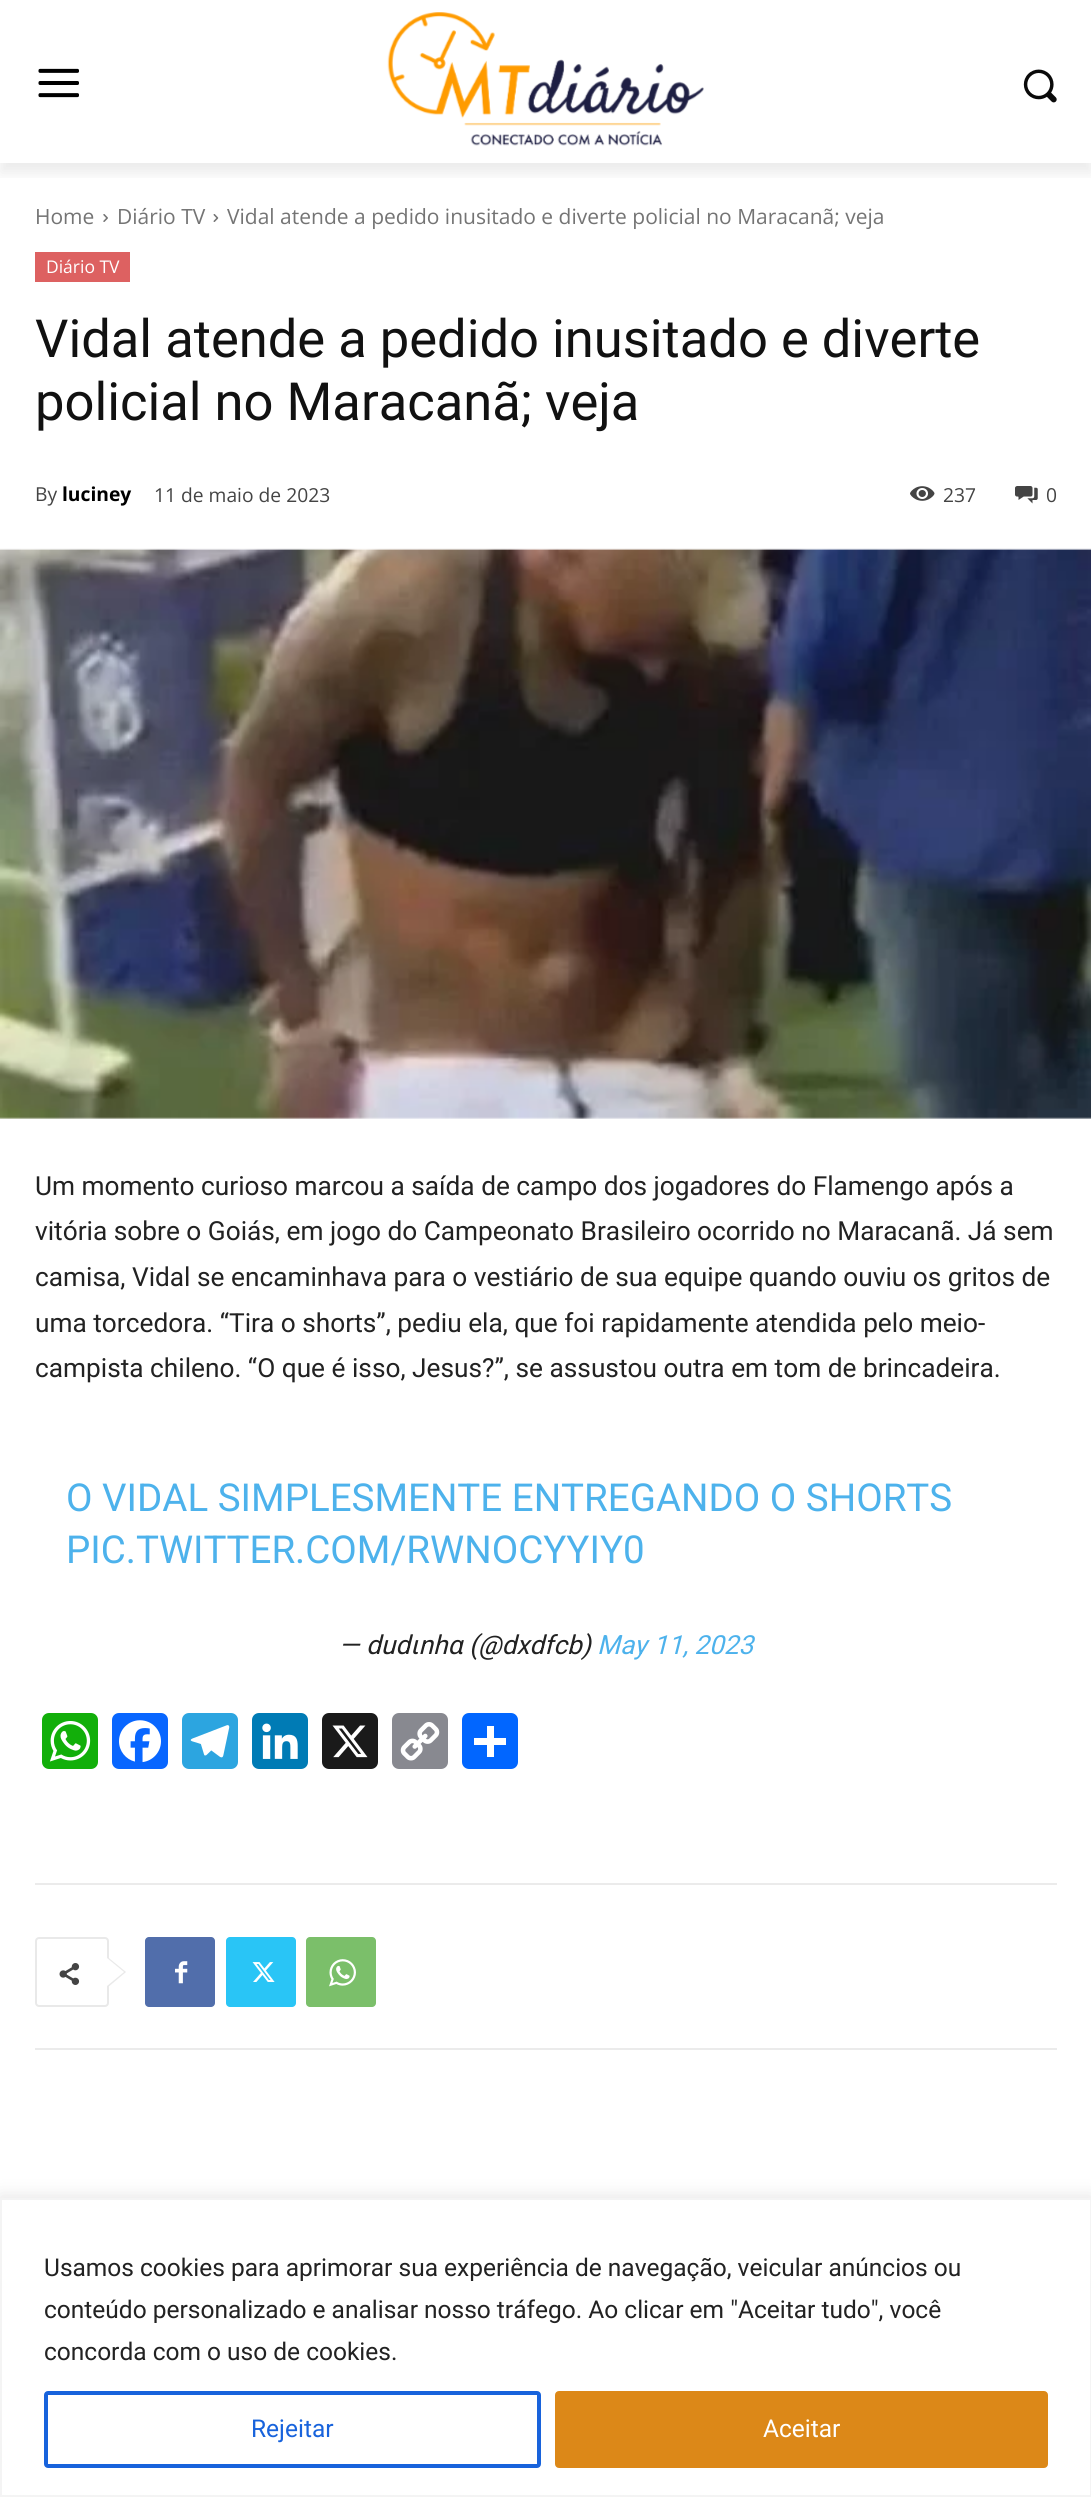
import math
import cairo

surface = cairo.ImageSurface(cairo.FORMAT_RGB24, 1091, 2497)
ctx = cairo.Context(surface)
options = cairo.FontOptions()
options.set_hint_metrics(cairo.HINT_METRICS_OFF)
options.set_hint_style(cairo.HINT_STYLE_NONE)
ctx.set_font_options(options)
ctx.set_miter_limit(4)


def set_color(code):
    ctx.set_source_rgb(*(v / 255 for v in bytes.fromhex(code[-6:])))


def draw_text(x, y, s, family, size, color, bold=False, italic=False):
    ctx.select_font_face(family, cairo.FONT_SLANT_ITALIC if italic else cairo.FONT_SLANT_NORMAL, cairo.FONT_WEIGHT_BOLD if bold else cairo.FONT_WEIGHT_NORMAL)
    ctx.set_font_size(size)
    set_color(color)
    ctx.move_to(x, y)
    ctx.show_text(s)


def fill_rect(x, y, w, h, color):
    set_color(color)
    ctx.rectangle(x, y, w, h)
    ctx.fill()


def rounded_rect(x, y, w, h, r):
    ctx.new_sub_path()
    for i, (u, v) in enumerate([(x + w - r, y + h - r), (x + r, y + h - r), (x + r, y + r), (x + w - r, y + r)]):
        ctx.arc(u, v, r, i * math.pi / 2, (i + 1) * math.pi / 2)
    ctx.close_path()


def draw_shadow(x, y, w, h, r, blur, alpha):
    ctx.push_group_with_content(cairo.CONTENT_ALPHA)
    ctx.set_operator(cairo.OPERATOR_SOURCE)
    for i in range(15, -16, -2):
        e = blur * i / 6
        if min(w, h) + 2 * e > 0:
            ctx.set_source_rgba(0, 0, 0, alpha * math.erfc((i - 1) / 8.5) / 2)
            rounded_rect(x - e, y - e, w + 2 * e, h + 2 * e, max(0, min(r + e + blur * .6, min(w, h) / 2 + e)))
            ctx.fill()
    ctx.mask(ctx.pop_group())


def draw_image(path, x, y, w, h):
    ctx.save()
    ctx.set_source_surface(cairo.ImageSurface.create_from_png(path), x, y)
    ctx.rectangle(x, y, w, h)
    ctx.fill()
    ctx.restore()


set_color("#ffffff")
ctx.paint()
draw_image("assets/img1.png", 38, 68, 41, 30)
draw_image("assets/img2.png", 387, 12, 317, 134)
draw_image("assets/img3.png", 1023, 69, 34, 34)
ctx.save()
ctx.rectangle(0, 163, 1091, 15)
ctx.clip()
set_color("#000000")
draw_shadow(0, 11, 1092, 162, 0, 7, 0.08)
ctx.restore()
draw_text(35, 224, "Home", "Open Sans", 21, "#747474")
draw_image("assets/img4.png", 103, 214, 5, 8)
draw_text(117, 224, "Diário TV", "Open Sans", 21, "#747474")
draw_image("assets/img5.png", 213, 214, 6, 8)
draw_text(227, 224, "Vidal atende a pedido inusitado e diverte policial no Maracanã; veja", "Open Sans", 21, "#747474")
fill_rect(35, 252, 95, 30, "#dd6161")
draw_text(46, 273, "Diário TV", "Open Sans", 17.5, "#ffffff")
draw_text(35, 357, "Vidal atende a pedido inusitado e diverte", "Roboto", 52.5, "#111111")
draw_text(35, 420, "policial no Maracanã; veja", "Roboto", 52.5, "#111111")
draw_text(35, 501, "By", "Open Sans", 19.25, "#444444")
draw_text(62, 501, "luciney", "Open Sans", 19.25, "#000000", bold=True)
draw_text(154, 502, "11 de maio de 2023", "Open Sans", 19.25, "#444444")
draw_image("assets/img6.png", 910, 486, 25, 15)
draw_text(943, 502, "237", "Open Sans", 19.25, "#444444")
draw_image("assets/img7.png", 1015, 486, 23, 18)
draw_text(1046, 502, "0", "Open Sans", 19.25, "#444444")
draw_image("assets/img8.png", 0, 548, 1091, 571)
draw_text(35, 1195, "Um momento curioso marcou a saída de campo dos jogadores do Flamengo após a", "Roboto", 26.25, "#222222")
draw_text(35, 1240, "vitória sobre o Goiás, em jogo do Campeonato Brasileiro ocorrido no Maracanã. Já sem", "Roboto", 26.25, "#222222")
draw_text(35, 1286, "camisa, Vidal se encaminhava para o vestiário de sua equipe quando ouviu os gritos de", "Roboto", 26.25, "#222222")
draw_text(35, 1332, "uma torcedora. “Tira o shorts”, pediu ela, que foi rapidamente atendida pelo meio-", "Roboto", 26.25, "#222222")
draw_text(35, 1377, "campista chileno. “O que é isso, Jesus?”, se assustou outra em tom de brincadeira.", "Roboto", 26.25, "#222222")
draw_text(66, 1511, "O VIDAL SIMPLESMENTE ENTREGANDO O SHORTS", "Roboto", 38.5, "#4db2ec")
draw_text(66, 1563, "PIC.TWITTER.COM/RWNOCYYIY0", "Roboto", 38.5, "#4db2ec")
draw_text(339, 1654, "— dudιnhα (@dxdfcb)", "Roboto", 26.25, "#222222", italic=True)
draw_text(597, 1654, "May 11, 2023", "Roboto", 26.25, "#4db2ec", italic=True)
set_color("#12af0a")
rounded_rect(42, 1713, 56, 56, 7)
ctx.fill()
draw_image("assets/img9.png", 49, 1721, 42, 41)
set_color("#0866ff")
rounded_rect(112, 1713, 56, 56, 7)
ctx.fill()
draw_image("assets/img10.png", 119, 1720, 42, 43)
set_color("#2ca5e0")
rounded_rect(182, 1713, 56, 56, 7)
ctx.fill()
draw_image("assets/img11.png", 190, 1725, 40, 33)
set_color("#007bb5")
rounded_rect(252, 1713, 56, 56, 7)
ctx.fill()
draw_image("assets/img12.png", 262, 1723, 36, 36)
set_color("#1a1a1a")
rounded_rect(322, 1713, 56, 56, 7)
ctx.fill()
draw_image("assets/img13.png", 332, 1725, 36, 33)
set_color("#888990")
rounded_rect(392, 1713, 56, 56, 7)
ctx.fill()
draw_image("assets/img14.png", 400, 1722, 40, 39)
set_color("#0166ff")
rounded_rect(462, 1713, 56, 56, 7)
ctx.fill()
fill_rect(487, 1726, 7, 31, "#ffffff")
fill_rect(474, 1738, 32, 7, "#ffffff")
fill_rect(35, 1883, 1022, 2, "#ebebeb")
rounded_rect(36, 1938, 72, 68, 3)
set_color("#e9e9e9")
ctx.stroke()
ctx.new_path()
ctx.move_to(107, 1988)
ctx.line_to(107, 1956.5)
ctx.line_to(126, 1972)
ctx.close_path()
ctx.fill()
draw_image("assets/img15.png", 59, 1963, 21, 22)
set_color("#ffffff")
ctx.new_path()
ctx.move_to(107, 1986)
ctx.line_to(107, 1958)
ctx.line_to(124, 1972)
ctx.close_path()
ctx.fill()
set_color("#516eab")
rounded_rect(145, 1937, 70, 70, 4)
ctx.fill()
draw_image("assets/img16.png", 175, 1961, 13, 23)
set_color("#29c5f6")
rounded_rect(226, 1937, 70, 70, 4)
ctx.fill()
draw_image("assets/img17.png", 252, 1962, 23, 20)
set_color("#7bbf6a")
rounded_rect(306, 1937, 70, 70, 4)
ctx.fill()
draw_image("assets/img18.png", 329, 1959, 27, 28)
fill_rect(35, 2048, 1022, 2, "#ebebeb")
set_color("#acabab")
draw_shadow(0, 2196, 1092, 300, 0, 9, 0.3)
set_color("#ffffff")
ctx.rectangle(1, 2199, 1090, 297)
ctx.fill_preserve()
set_color("#f4f4f4")
ctx.stroke()
draw_text(44, 2276, "Usamos cookies para aprimorar sua experiência de navegação, veicular anúncios ou", "Roboto", 24.5, "#222222")
draw_text(44, 2318, "conteúdo personalizado e analisar nosso tráfego. Ao clicar em \"Aceitar tudo\", você", "Roboto", 24.5, "#222222")
draw_text(44, 2360, "concorda com o uso de cookies.", "Roboto", 24.5, "#222222")
rounded_rect(46, 2393, 493, 73, 2)
set_color("#1863dc")
ctx.set_line_width(4)
ctx.stroke()
draw_text(251, 2437, "Rejeitar", "Roboto", 24.5, "#1863dc")
set_color("#dc8818")
rounded_rect(557, 2393, 489, 73, 2)
ctx.fill_preserve()
ctx.stroke()
draw_text(763, 2437, "Aceitar", "Roboto", 24.5, "#ffffff")
surface.write_to_png("output.png")
